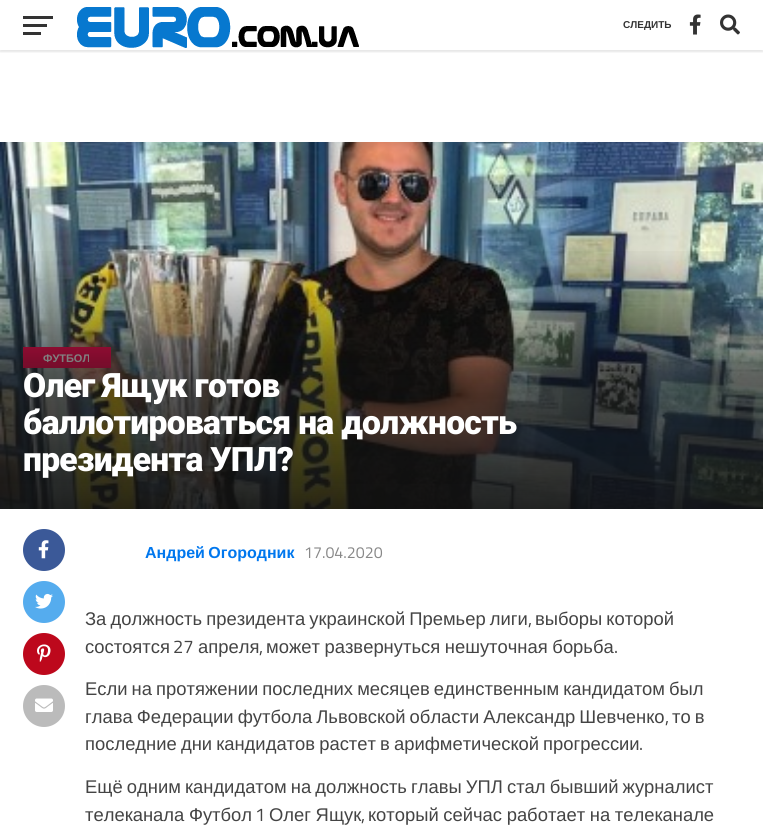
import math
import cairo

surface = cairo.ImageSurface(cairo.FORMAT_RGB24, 763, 839)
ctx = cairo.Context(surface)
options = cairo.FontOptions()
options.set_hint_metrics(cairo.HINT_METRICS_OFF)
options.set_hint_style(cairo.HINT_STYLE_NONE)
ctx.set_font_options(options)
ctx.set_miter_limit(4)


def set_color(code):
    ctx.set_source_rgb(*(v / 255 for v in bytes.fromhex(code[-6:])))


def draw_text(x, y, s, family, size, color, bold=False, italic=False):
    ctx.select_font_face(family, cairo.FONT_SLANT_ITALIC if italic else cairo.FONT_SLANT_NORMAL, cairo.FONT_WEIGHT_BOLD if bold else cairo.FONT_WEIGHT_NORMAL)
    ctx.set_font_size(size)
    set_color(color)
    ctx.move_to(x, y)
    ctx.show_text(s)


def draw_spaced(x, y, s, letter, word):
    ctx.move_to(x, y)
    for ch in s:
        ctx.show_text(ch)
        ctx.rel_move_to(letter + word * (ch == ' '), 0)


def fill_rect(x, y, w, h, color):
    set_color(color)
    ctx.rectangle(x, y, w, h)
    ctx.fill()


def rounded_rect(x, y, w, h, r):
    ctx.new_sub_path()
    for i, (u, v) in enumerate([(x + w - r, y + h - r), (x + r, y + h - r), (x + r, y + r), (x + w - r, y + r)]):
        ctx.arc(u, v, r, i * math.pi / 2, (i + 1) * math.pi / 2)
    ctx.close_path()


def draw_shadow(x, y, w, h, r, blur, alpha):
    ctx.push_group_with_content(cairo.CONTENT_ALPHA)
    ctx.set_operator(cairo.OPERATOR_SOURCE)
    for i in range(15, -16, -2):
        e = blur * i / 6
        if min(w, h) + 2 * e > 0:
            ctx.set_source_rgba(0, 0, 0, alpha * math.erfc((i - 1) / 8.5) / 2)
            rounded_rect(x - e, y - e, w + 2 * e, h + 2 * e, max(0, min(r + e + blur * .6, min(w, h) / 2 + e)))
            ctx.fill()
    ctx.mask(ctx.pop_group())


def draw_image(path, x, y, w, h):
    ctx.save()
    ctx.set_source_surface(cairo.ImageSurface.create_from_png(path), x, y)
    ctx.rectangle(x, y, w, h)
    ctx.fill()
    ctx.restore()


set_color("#ffffff")
ctx.paint()
ctx.save()
ctx.rectangle(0, 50, 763, 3)
ctx.clip()
set_color("#000000")
draw_shadow(0, 2, 763, 50, 0, 1, 0.1)
ctx.restore()
fill_rect(23, 16, 30, 3, "#333333")
fill_rect(23, 24, 24, 3, "#333333")
fill_rect(23, 32, 18, 3, "#333333")
draw_image("assets/img1.png", 77, 7, 282, 41)
draw_text(623, 28, "СЛЕДИТЬ", "Liberation Sans", 10, "#333333", bold=True)
draw_image("assets/img2.png", 689, 14, 12, 21)
draw_image("assets/img3.png", 720, 14, 20, 21)
draw_image("assets/img4.png", 0, 142, 763, 367)
fill_rect(23, 347, 88, 21, "#fe074e")
draw_text(43, 362, "ФУТБОЛ", "Liberation Sans", 11, "#ffffff", bold=True)
gradient = cairo.LinearGradient(382, 247, 382, 509)
gradient.add_color_stop_rgba(0, 0.067, 0.067, 0.067, 0)
gradient.add_color_stop_rgba(0.5, 0.067, 0.067, 0.067, 0.63)
gradient.add_color_stop_rgba(1, 0.067, 0.067, 0.067, 0.9)
ctx.set_source(gradient)
ctx.rectangle(0, 251, 763, 258)
ctx.fill()
ctx.select_font_face("Roboto Black")
ctx.set_font_size(33.6)
set_color("#ffffff")
draw_spaced(23, 397, "Олег Ящук готов", -0.7, 0)
draw_spaced(23, 434, "баллотироваться на должность", -0.7, 0)
draw_spaced(23, 471, "президента УПЛ?", -0.7, 0)
set_color("#3b5998")
ctx.new_path()
ctx.arc(44, 550, 21, 0, 2 * math.pi)
ctx.fill()
draw_image("assets/img5.png", 38, 540, 11, 19)
set_color("#55acee")
ctx.arc(44, 602, 21, 0, 2 * math.pi)
ctx.fill()
draw_image("assets/img6.png", 35, 593, 18, 16)
set_color("#bd081c")
ctx.arc(44, 654, 21, 0, 2 * math.pi)
ctx.fill()
draw_image("assets/img7.png", 37, 644, 14, 18)
set_color("#bbbbbb")
ctx.arc(44, 706, 21, 0, 2 * math.pi)
ctx.fill()
draw_image("assets/img8.png", 35, 698, 18, 14)
ctx.select_font_face("Liberation Sans", cairo.FONT_SLANT_NORMAL, cairo.FONT_WEIGHT_BOLD)
ctx.set_font_size(16)
set_color("#0077ee")
draw_spaced(145, 558, "Андрей Огородник", 0, -1)
draw_text(304, 558, "17.04.2020", "Titillium Web", 16, "#888888")
ctx.select_font_face("Liberation Sans")
ctx.set_font_size(18.4)
set_color("#444444")
draw_spaced(85, 625, "За должность президента украинской Премьер лиги", 0, -1)
draw_text(528, 625, ",", "Titillium Web", 18.4, "#444444")
ctx.select_font_face("Liberation Sans")
draw_spaced(535, 625, "выборы которой", 0, -1)
draw_text(85, 653, "состоятся", "Liberation Sans", 18.4, "#444444")
draw_text(173, 653, "27", "Titillium Web", 18.4, "#444444")
draw_text(198, 653, "апреля", "Liberation Sans", 18.4, "#444444")
draw_text(259, 653, ",", "Titillium Web", 18.4, "#444444")
ctx.select_font_face("Liberation Sans")
draw_spaced(266, 653, "может развернуться нешуточная борьба", 0, -0.5)
draw_text(614, 653, ".", "Titillium Web", 18.4, "#444444")
ctx.select_font_face("Liberation Sans")
draw_spaced(85, 695, "Если на протяжении последних месяцев единственным кандидатом был", 0, -1)
draw_spaced(85, 723, "глава Федерации футбола Львовской области Александр Шевченко", 0, -1)
draw_text(665, 723, ",", "Titillium Web", 18.4, "#444444")
ctx.select_font_face("Liberation Sans")
draw_spaced(672, 723, "то в", 0, -1)
draw_spaced(85, 750, "последние дни кандидатов растет в арифметической прогрессии", 0, -1)
draw_text(639, 750, ".", "Titillium Web", 18.4, "#444444")
ctx.select_font_face("Liberation Sans")
draw_spaced(85, 793, "Ещё одним кандидатом на должность главы УПЛ стал бывший журналист", 0, -1)
draw_spaced(85, 821, "телеканала Футбол", 0, -0.5)
draw_text(255, 821, "1", "Titillium Web", 18.4, "#444444")
ctx.select_font_face("Liberation Sans")
draw_spaced(269, 821, "Олег Ящук", 0, -0.5)
draw_text(361, 821, ",", "Titillium Web", 18.4, "#444444")
ctx.select_font_face("Liberation Sans")
draw_spaced(368, 821, "который сейчас работает на телеканале", 0, -0.5)
surface.write_to_png("output.png")
